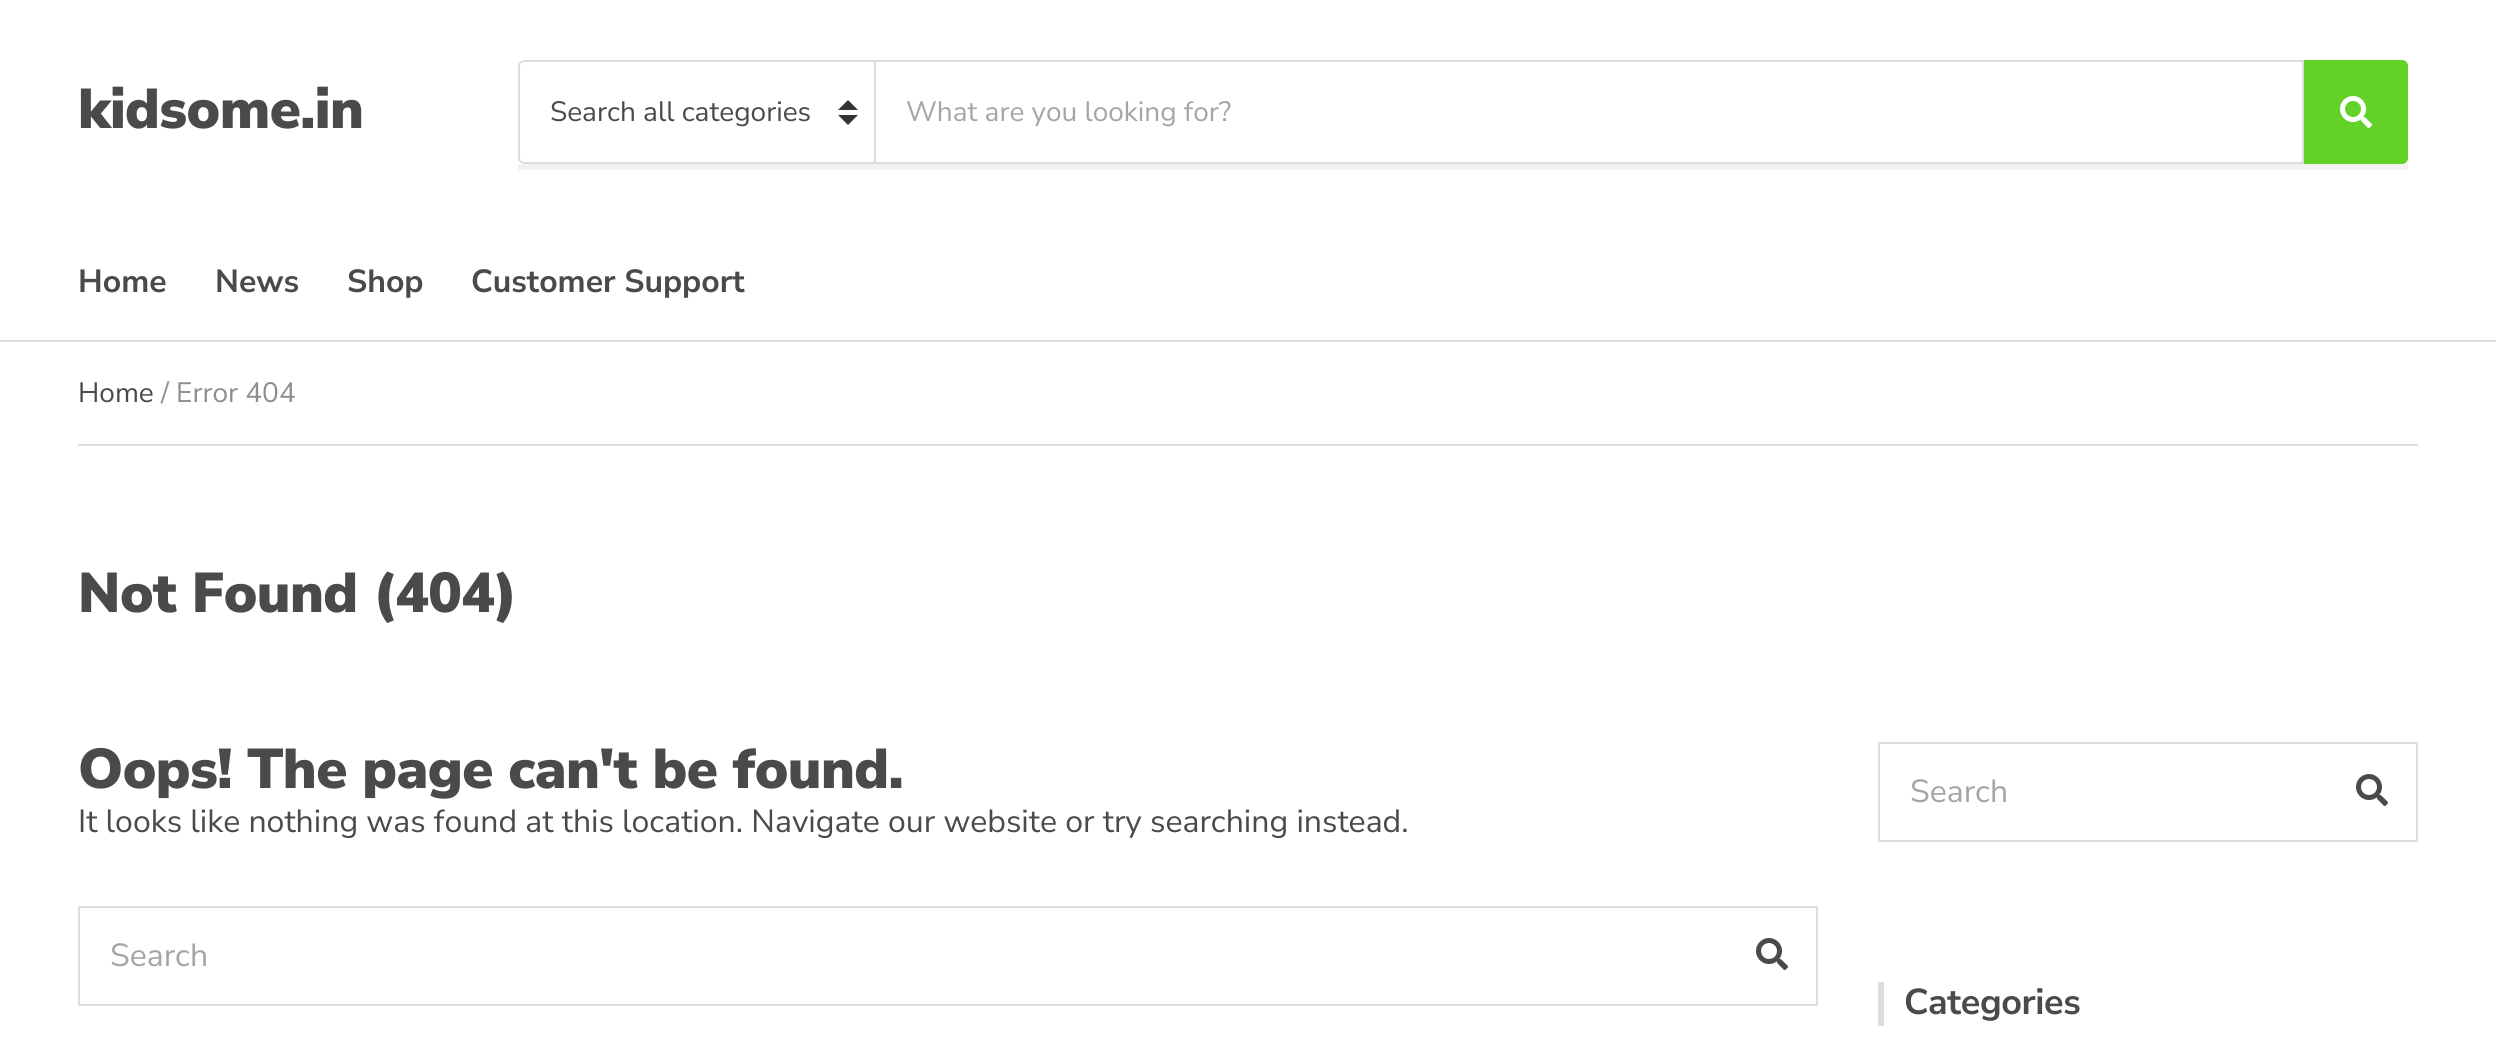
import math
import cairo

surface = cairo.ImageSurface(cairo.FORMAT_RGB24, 2496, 1063)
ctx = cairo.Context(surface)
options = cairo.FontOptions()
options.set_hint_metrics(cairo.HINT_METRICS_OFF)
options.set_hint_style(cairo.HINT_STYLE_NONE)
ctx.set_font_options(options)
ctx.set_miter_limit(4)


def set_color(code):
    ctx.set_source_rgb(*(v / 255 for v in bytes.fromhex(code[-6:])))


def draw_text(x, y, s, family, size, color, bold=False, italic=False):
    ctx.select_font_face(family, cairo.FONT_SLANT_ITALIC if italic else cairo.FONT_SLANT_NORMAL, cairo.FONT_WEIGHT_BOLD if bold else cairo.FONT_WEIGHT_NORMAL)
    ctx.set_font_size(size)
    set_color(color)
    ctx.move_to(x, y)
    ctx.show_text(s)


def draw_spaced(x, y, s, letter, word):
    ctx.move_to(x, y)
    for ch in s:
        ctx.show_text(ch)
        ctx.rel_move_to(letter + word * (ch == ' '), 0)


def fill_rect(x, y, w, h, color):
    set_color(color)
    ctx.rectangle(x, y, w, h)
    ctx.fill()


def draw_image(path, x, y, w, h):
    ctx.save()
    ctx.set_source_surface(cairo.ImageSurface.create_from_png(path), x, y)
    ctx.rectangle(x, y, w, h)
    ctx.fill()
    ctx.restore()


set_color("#ffffff")
ctx.paint()
ctx.select_font_face("Nunito Sans Black")
ctx.set_font_size(56)
set_color("#4a4a4a")
draw_spaced(78, 128, "kidsome.in", -0.55, 0)
fill_rect(518, 164, 1890, 6, "#f2f2f2")
set_color("#333333")
ctx.new_path()
ctx.move_to(848, 100)
ctx.line_to(838, 110)
ctx.line_to(858, 110)
ctx.close_path()
ctx.move_to(848, 125)
ctx.line_to(838, 115)
ctx.line_to(858, 115)
ctx.close_path()
ctx.fill()
set_color("#dddddd")
ctx.set_fill_rule(cairo.FILL_RULE_EVEN_ODD)
ctx.new_path()
ctx.move_to(524, 60)
ctx.line_to(874, 60)
ctx.line_to(874, 164)
ctx.line_to(524, 164)
ctx.curve_to(521, 164, 518, 161, 518, 158)
ctx.line_to(518, 66)
ctx.curve_to(518, 63, 521, 60, 524, 60)
ctx.close_path()
ctx.move_to(524, 62)
ctx.line_to(874, 62)
ctx.line_to(874, 162)
ctx.line_to(524, 162)
ctx.curve_to(522, 162, 520, 160, 520, 158)
ctx.line_to(520, 66)
ctx.curve_to(520, 64, 522, 62, 524, 62)
ctx.close_path()
ctx.fill()
draw_text(550, 121, "Search all categories", "Nunito Sans", 28, "#4a4a4a")
ctx.rectangle(875, 61, 1428, 102)
set_color("#dddddd")
ctx.stroke()
draw_text(906, 121, "What are you looking for?", "Nunito Sans", 28, "#a5a5a5")
set_color("#63d127")
ctx.new_path()
ctx.move_to(2304, 60)
ctx.line_to(2402, 60)
ctx.curve_to(2405.5, 60, 2408, 62.5, 2408, 66)
ctx.line_to(2408, 158)
ctx.curve_to(2408, 161.5, 2405.5, 164, 2402, 164)
ctx.line_to(2304, 164)
ctx.close_path()
ctx.fill()
draw_image("assets/img1.png", 2340, 96, 32, 32)
fill_rect(0, 340, 2496, 2, "#dddddd")
draw_text(78, 292, "Home", "Nunito Sans", 32, "#4a4a4a", bold=True)
draw_text(215, 292, "News", "Nunito Sans", 32, "#4a4a4a", bold=True)
draw_text(347, 292, "Shop", "Nunito Sans", 32, "#4a4a4a", bold=True)
draw_text(471, 292, "Customer Support", "Nunito Sans", 32, "#4a4a4a", bold=True)
fill_rect(78, 444, 2340, 2, "#dddddd")
draw_text(78, 402, "Home", "Nunito Sans", 28, "#4a4a4a")
draw_text(161, 402, "/ Error 404", "Nunito Sans", 28, "#8e8e8e")
ctx.select_font_face("Nunito Sans Black")
ctx.set_font_size(56)
set_color("#4a4a4a")
draw_spaced(78, 612, "Not Found (404)", -0.55, 0)
draw_spaced(78, 788, "Oops! The page can't be found.", -0.55, 0)
draw_text(78, 832, "It looks like nothing was found at this location. Navigate our website or try searching instead.", "Nunito Sans", 32, "#4a4a4a")
ctx.rectangle(79, 907, 1738, 98)
set_color("#dddddd")
ctx.stroke()
draw_text(110, 966, "Search", "Nunito Sans", 32, "#a5a5a5")
draw_image("assets/img2.png", 1756, 938, 32, 32)
ctx.rectangle(1879, 743, 538, 98)
set_color("#dddddd")
ctx.stroke()
draw_text(1910, 802, "Search", "Nunito Sans", 32, "#a5a5a5")
draw_image("assets/img2.png", 2356, 774, 32, 32)
fill_rect(1878, 982, 6, 44, "#dddddd")
ctx.select_font_face("Nunito Sans", cairo.FONT_SLANT_NORMAL, cairo.FONT_WEIGHT_BOLD)
ctx.set_font_size(36)
set_color("#4a4a4a")
draw_spaced(1904, 1014, "Categories", -0.4, 0)
surface.write_to_png("output.png")
